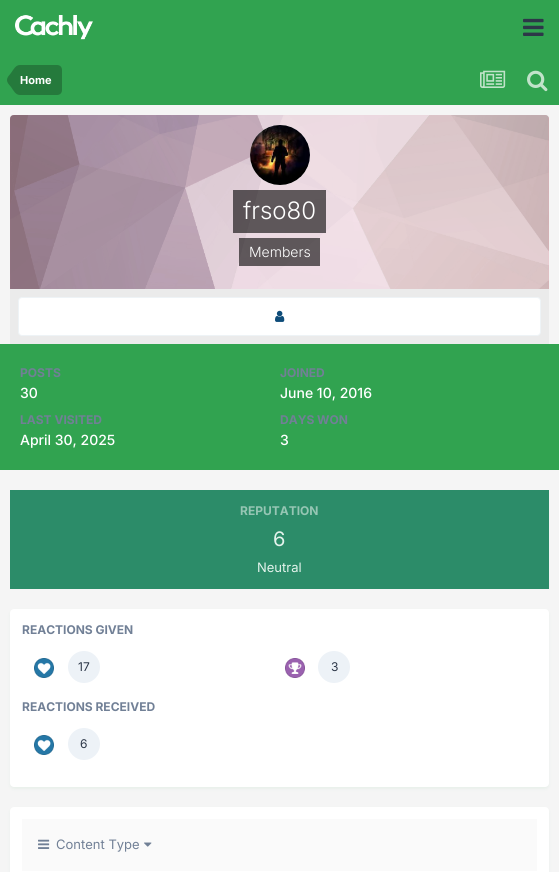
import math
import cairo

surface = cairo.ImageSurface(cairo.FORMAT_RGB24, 559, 872)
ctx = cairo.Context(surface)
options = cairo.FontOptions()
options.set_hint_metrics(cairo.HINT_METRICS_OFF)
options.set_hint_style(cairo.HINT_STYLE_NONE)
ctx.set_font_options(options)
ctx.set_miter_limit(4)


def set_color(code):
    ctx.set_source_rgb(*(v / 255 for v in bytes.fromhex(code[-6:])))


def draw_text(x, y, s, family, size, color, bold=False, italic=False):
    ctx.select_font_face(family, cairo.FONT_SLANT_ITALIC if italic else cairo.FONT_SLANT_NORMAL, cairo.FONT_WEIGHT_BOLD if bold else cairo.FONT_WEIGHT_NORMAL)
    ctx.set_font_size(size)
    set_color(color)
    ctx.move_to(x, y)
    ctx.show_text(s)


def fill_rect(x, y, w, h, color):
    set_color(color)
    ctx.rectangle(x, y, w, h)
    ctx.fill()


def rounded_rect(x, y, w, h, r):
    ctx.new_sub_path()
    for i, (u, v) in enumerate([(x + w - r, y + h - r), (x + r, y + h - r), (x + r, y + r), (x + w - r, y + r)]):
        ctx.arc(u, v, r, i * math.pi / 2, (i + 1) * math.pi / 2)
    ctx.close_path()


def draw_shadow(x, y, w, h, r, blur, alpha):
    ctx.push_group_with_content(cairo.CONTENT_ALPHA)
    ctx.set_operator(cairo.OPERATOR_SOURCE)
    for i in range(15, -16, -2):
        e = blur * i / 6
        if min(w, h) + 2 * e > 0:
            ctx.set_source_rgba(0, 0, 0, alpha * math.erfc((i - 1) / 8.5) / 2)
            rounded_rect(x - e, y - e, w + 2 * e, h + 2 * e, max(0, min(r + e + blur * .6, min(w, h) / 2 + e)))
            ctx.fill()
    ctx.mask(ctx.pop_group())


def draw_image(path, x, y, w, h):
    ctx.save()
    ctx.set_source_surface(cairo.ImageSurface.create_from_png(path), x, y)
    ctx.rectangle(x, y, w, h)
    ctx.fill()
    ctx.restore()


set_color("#f5f5f5")
ctx.paint()
fill_rect(0, 0, 559, 105, "#31a350")
draw_image("assets/img1.png", 15, 15, 78, 25)
draw_image("assets/img2.png", 523, 18, 21, 18)
set_color("#257a3c")
ctx.new_path()
ctx.move_to(20, 65)
ctx.line_to(57, 65)
ctx.curve_to(60, 65, 62, 67, 62, 70)
ctx.line_to(62, 90)
ctx.curve_to(62, 93, 60, 95, 57, 95)
ctx.line_to(20, 95)
ctx.close_path()
ctx.fill()
ctx.new_path()
ctx.move_to(20, 80)
ctx.line_to(20, 95)
ctx.curve_to(15.5, 95, 13.5, 90.5, 11, 87)
ctx.curve_to(9.5, 85, 7, 83, 7, 80)
ctx.close_path()
ctx.move_to(20, 80)
ctx.line_to(7, 80)
ctx.curve_to(7, 77, 9.5, 75, 11, 73)
ctx.curve_to(13.5, 69.5, 15.5, 65, 20, 65)
ctx.close_path()
ctx.fill()
draw_text(20, 84, "Home", "Inter", 11, "#ffffff", bold=True)
draw_image("assets/img3.png", 480, 70, 26, 18)
draw_image("assets/img4.png", 527, 70, 21, 22)
set_color("#ff99c2")
ctx.new_path()
ctx.move_to(14, 115)
ctx.line_to(545, 115)
ctx.curve_to(547, 115, 549, 117, 549, 119)
ctx.line_to(549, 289)
ctx.line_to(10, 289)
ctx.line_to(10, 119)
ctx.curve_to(10, 117, 12, 115, 14, 115)
ctx.close_path()
ctx.fill()
draw_image("assets/img5.png", 10, 115, 539, 174)
set_color("#ffffff")
ctx.arc(280, 155, 30, 0, 2 * math.pi)
ctx.fill()
draw_image("assets/img6.png", 250, 125, 60, 60)
ctx.set_source_rgba(0, 0, 0, 0.6)
ctx.rectangle(233, 190, 93, 43)
ctx.fill()
draw_text(243, 219, "frso80", "Inter Light", 24, "#ffffff")
ctx.set_source_rgba(0, 0, 0, 0.6)
ctx.rectangle(239, 238, 81, 28)
ctx.fill()
draw_text(249, 257, "Members", "Inter Light", 14, "#ffffff")
fill_rect(10, 289, 539, 55, "#ebebeb")
set_color("#ffffff")
rounded_rect(18, 297, 523, 39, 4)
ctx.fill()
rounded_rect(18.5, 297.5, 522, 38, 3.5)
ctx.set_source_rgba(0.055, 0.298, 0.475, 0.07)
ctx.set_line_width(1)
ctx.stroke()
draw_image("assets/img7.png", 275, 310, 10, 12)
fill_rect(0, 344, 559, 126, "#31a350")
draw_text(20, 377, "POSTS", "Inter", 12, "#718096", bold=True)
draw_text(20, 398, "30", "Inter Medium", 14, "#ffffff")
draw_text(280, 377, "JOINED", "Inter", 12, "#718096", bold=True)
draw_text(280, 398, "June 10, 2016", "Inter Medium", 14, "#ffffff")
draw_text(20, 424, "LAST VISITED", "Inter", 12, "#718096", bold=True)
draw_text(20, 445, "April 30, 2025", "Inter Medium", 14, "#ffffff")
draw_text(280, 424, "DAYS WON", "Inter", 12, "#718096", bold=True)
draw_text(280, 445, "3", "Inter Medium", 14, "#ffffff")
fill_rect(10, 490, 539, 99, "#2c8c69")
draw_text(240, 515, "REPUTATION", "Inter", 12, "#96c6b4", bold=True)
draw_text(273, 546, "6", "Inter", 20, "#e3f3ec")
draw_text(257, 572, "Neutral", "Inter", 13, "#e3f3ec")
set_color("#31a350")
draw_shadow(11, 612, 537, 176, 3, 2, 0.1)
set_color("#ffffff")
rounded_rect(10, 609, 539, 178, 4)
ctx.fill()
draw_text(22, 634, "REACTIONS GIVEN", "Inter", 12, "#718096", bold=True)
draw_image("assets/img8.png", 34, 658, 20, 20)
set_color("#edf2f7")
ctx.arc(84, 667, 16, 0, 2 * math.pi)
ctx.fill()
draw_text(78, 671, "17", "Inter", 12, "#2d3748")
draw_image("assets/img9.png", 285, 658, 20, 20)
set_color("#edf2f7")
ctx.arc(334, 667, 16, 0, 2 * math.pi)
ctx.fill()
draw_text(331, 671, "3", "Inter", 12, "#2d3748")
draw_text(22, 711, "REACTIONS RECEIVED", "Inter", 12, "#718096", bold=True)
draw_image("assets/img8.png", 34, 735, 20, 20)
set_color("#edf2f7")
ctx.arc(84, 744, 16, 0, 2 * math.pi)
ctx.fill()
draw_text(80, 748, "6", "Inter", 12, "#2d3748")
set_color("#31a350")
draw_shadow(11, 810, 537, 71, 3, 2, 0.1)
set_color("#ffffff")
rounded_rect(10, 807, 539, 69, 4)
ctx.fill()
fill_rect(22, 819, 515, 52, "#fafafa")
draw_image("assets/img10.png", 38, 839, 12, 10)
draw_text(56, 849, "Content Type", "Inter", 13, "#718096")
draw_image("assets/img11.png", 144, 842, 8, 5)
surface.write_to_png("output.png")
